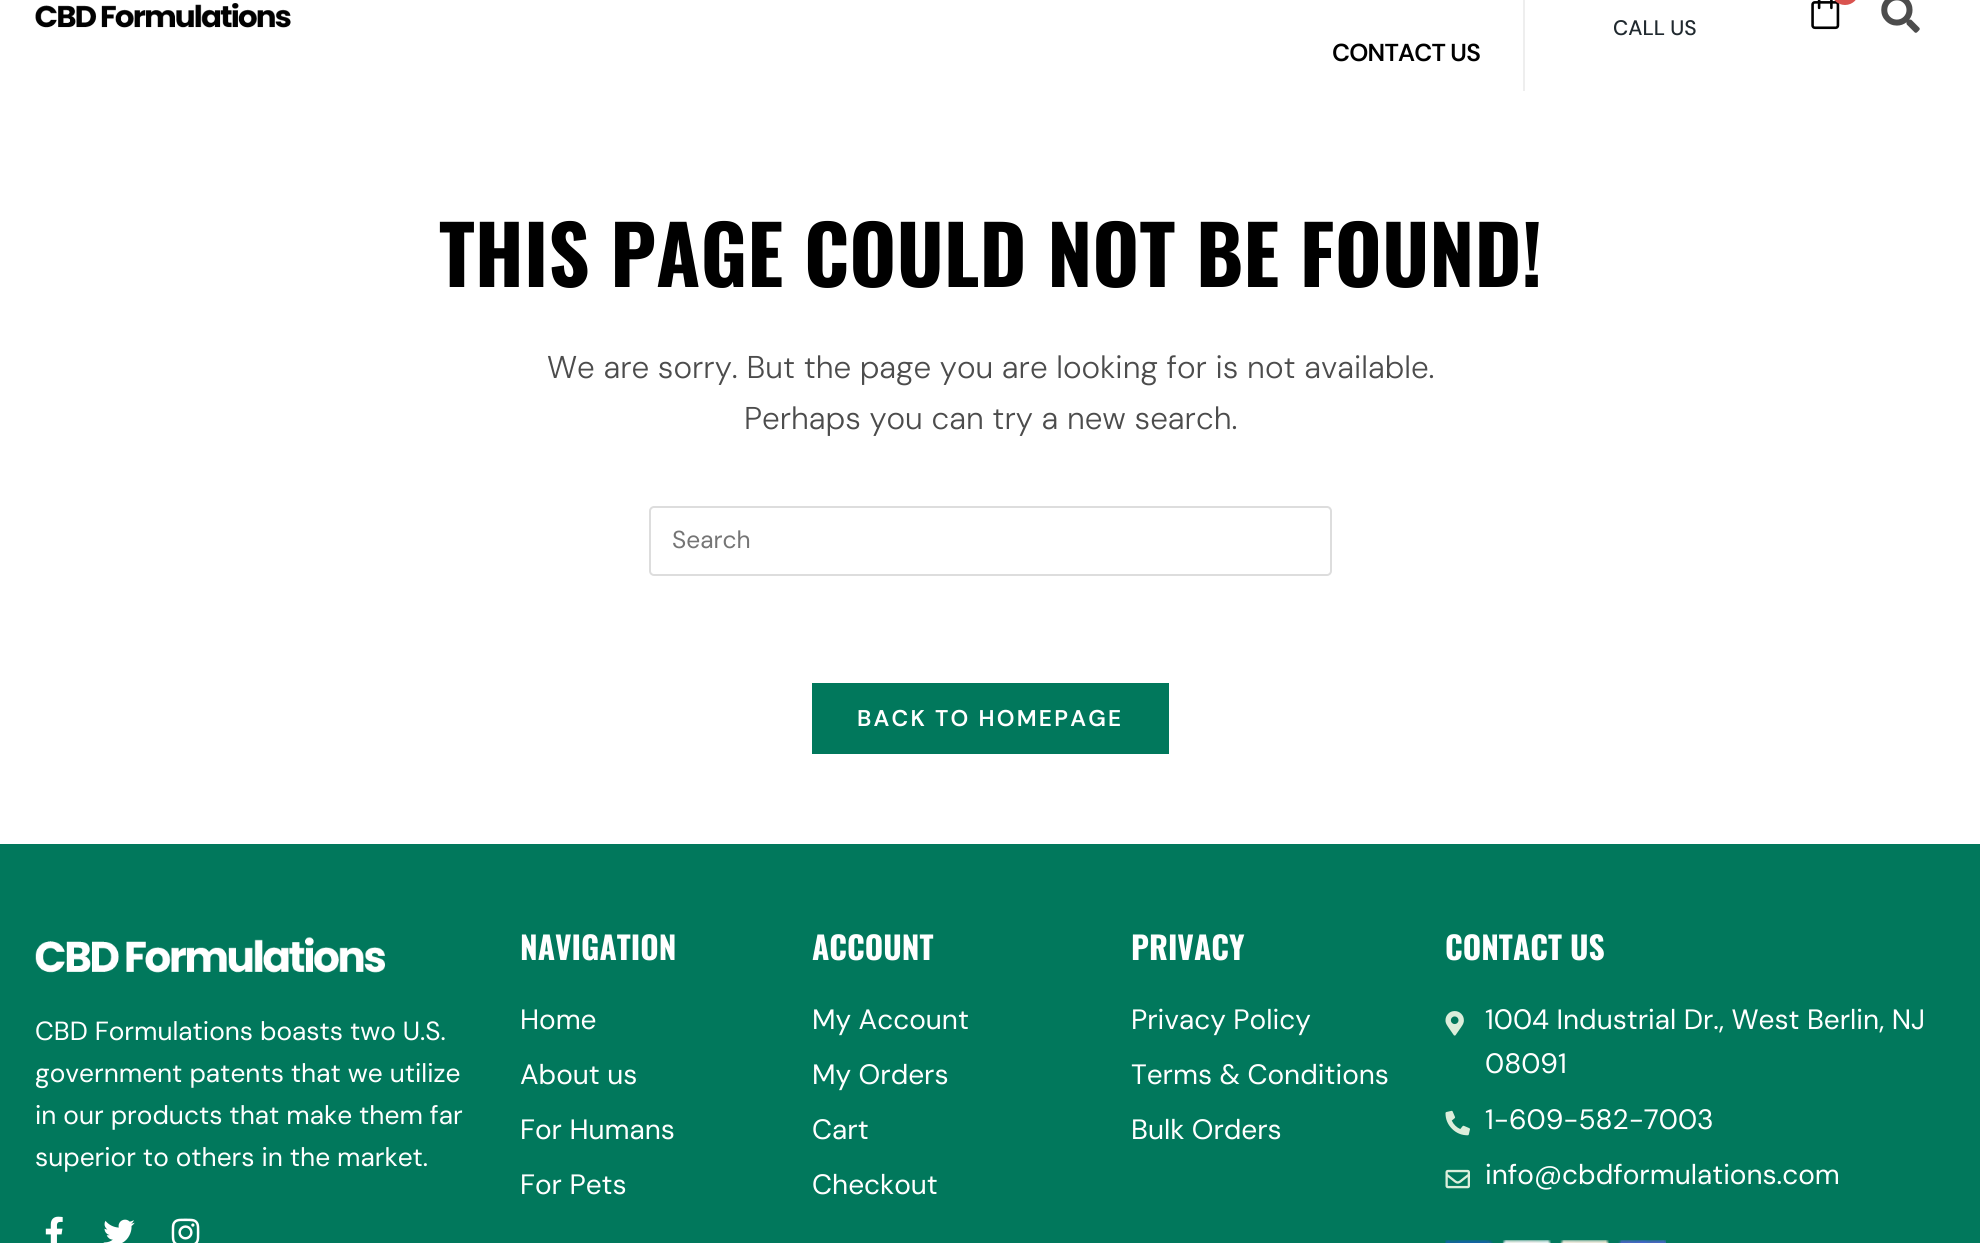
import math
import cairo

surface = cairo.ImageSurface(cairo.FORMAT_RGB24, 1980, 1243)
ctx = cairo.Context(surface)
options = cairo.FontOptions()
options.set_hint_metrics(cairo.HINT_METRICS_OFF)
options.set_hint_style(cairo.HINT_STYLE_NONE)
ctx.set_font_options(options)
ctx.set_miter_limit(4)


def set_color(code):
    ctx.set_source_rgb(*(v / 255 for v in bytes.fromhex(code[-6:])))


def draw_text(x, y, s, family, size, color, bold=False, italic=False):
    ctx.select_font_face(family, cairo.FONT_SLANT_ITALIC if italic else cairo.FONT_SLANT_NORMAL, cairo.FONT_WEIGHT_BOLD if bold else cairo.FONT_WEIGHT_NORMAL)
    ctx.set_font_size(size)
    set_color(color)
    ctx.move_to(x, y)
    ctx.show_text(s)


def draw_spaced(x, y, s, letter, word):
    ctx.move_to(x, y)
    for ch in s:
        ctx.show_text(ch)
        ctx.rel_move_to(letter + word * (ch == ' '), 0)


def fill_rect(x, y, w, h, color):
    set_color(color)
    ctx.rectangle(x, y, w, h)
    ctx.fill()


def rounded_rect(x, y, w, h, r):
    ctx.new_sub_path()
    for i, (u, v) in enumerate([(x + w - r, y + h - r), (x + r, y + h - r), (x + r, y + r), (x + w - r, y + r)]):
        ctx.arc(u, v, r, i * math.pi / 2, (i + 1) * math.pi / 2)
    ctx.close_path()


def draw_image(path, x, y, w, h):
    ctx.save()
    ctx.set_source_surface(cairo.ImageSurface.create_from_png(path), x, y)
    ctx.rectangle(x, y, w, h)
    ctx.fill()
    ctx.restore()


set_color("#ffffff")
ctx.paint()
draw_image("assets/img1.png", 35, 3, 256, 25)
draw_text(1613, 35, "CALL US", "DM Sans Medium", 21, "#20292f")
draw_image("assets/img2.png", 1811, 0, 29, 30)
set_color("#d9534f")
rounded_rect(1831, -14, 28, 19, 14)
ctx.fill()
draw_image("assets/img3.png", 1881, 0, 39, 33)
fill_rect(1523, 0, 2, 91, "#eeeeee")
ctx.select_font_face("DM Sans SemiBold")
ctx.set_font_size(24.5)
set_color("#000000")
draw_spaced(1332, 61, "CONTACT US", -0.75, 0)
draw_text(439, 287, "THIS PAGE COULD NOT BE FOUND!", "Oswald", 80.5, "#000000", bold=True)
draw_text(547, 378, "We are sorry. But the page you are looking for is not available.", "DM Sans Light", 31.5, "#4c4c4c")
draw_text(744, 429, "Perhaps you can try a new search.", "DM Sans Light", 31.5, "#4c4c4c")
rounded_rect(650, 507, 681, 68, 4)
set_color("#dddddd")
ctx.stroke()
draw_text(672, 548, "Search", "DM Sans", 24.5, "#757575")
fill_rect(812, 683, 357, 71, "#01785c")
ctx.select_font_face("DM Sans SemiBold")
ctx.set_font_size(22.75)
set_color("#ffffff")
draw_spaced(857, 726, "BACK TO HOMEPAGE", 2.25, 0)
fill_rect(0, 844, 1980, 399, "#01785c")
draw_image("assets/img4.png", 35, 937, 350, 36)
draw_text(35, 1040, "CBD Formulations boasts two U.S.", "DM Sans", 26.25, "#ffffff")
draw_text(35, 1082, "government patents that we utilize", "DM Sans", 26.25, "#ffffff")
draw_text(35, 1124, "in our products that make them far", "DM Sans", 26.25, "#ffffff")
draw_text(35, 1166, "superior to others in the market.", "DM Sans", 26.25, "#ffffff")
draw_image("assets/img5.png", 45, 1216, 18, 27)
draw_image("assets/img6.png", 103, 1219, 32, 24)
draw_image("assets/img7.png", 171, 1218, 29, 25)
draw_text(520, 960, "NAVIGATION", "Oswald", 31.5, "#ffffff", bold=True)
draw_text(520, 1029, "Home", "DM Sans", 28, "#ffffff")
draw_text(520, 1084, "About us", "DM Sans", 28, "#ffffff")
draw_text(520, 1139, "For Humans", "DM Sans", 28, "#ffffff")
draw_text(520, 1194, "For Pets", "DM Sans", 28, "#ffffff")
draw_text(812, 960, "ACCOUNT", "Oswald", 31.5, "#ffffff", bold=True)
draw_text(812, 1029, "My Account", "DM Sans", 28, "#ffffff")
draw_text(812, 1084, "My Orders", "DM Sans", 28, "#ffffff")
draw_text(812, 1139, "Cart", "DM Sans", 28, "#ffffff")
draw_text(812, 1194, "Checkout", "DM Sans", 28, "#ffffff")
draw_text(1131, 960, "PRIVACY", "Oswald", 31.5, "#ffffff", bold=True)
draw_text(1131, 1029, "Privacy Policy", "DM Sans", 28, "#ffffff")
draw_text(1131, 1084, "Terms & Conditions", "DM Sans", 28, "#ffffff")
draw_text(1131, 1139, "Bulk Orders", "DM Sans", 28, "#ffffff")
draw_text(1445, 960, "CONTACT US", "Oswald", 31.5, "#ffffff", bold=True)
draw_image("assets/img8.png", 1445, 1011, 19, 25)
draw_text(1485, 1029, "1004 Industrial Dr., West Berlin, NJ", "DM Sans", 28, "#ffffff")
draw_text(1485, 1073, "08091", "DM Sans", 28, "#ffffff")
draw_image("assets/img9.png", 1445, 1110, 25, 26)
draw_text(1485, 1129, "1-609-582-7003", "DM Sans", 28, "#ffffff")
draw_image("assets/img10.png", 1445, 1169, 25, 20)
draw_text(1485, 1184, "info@cbdformulations.com", "DM Sans", 28, "#ffffff")
draw_image("assets/img11.png", 1445, 1240, 221, 3)
surface.write_to_png("output.png")
